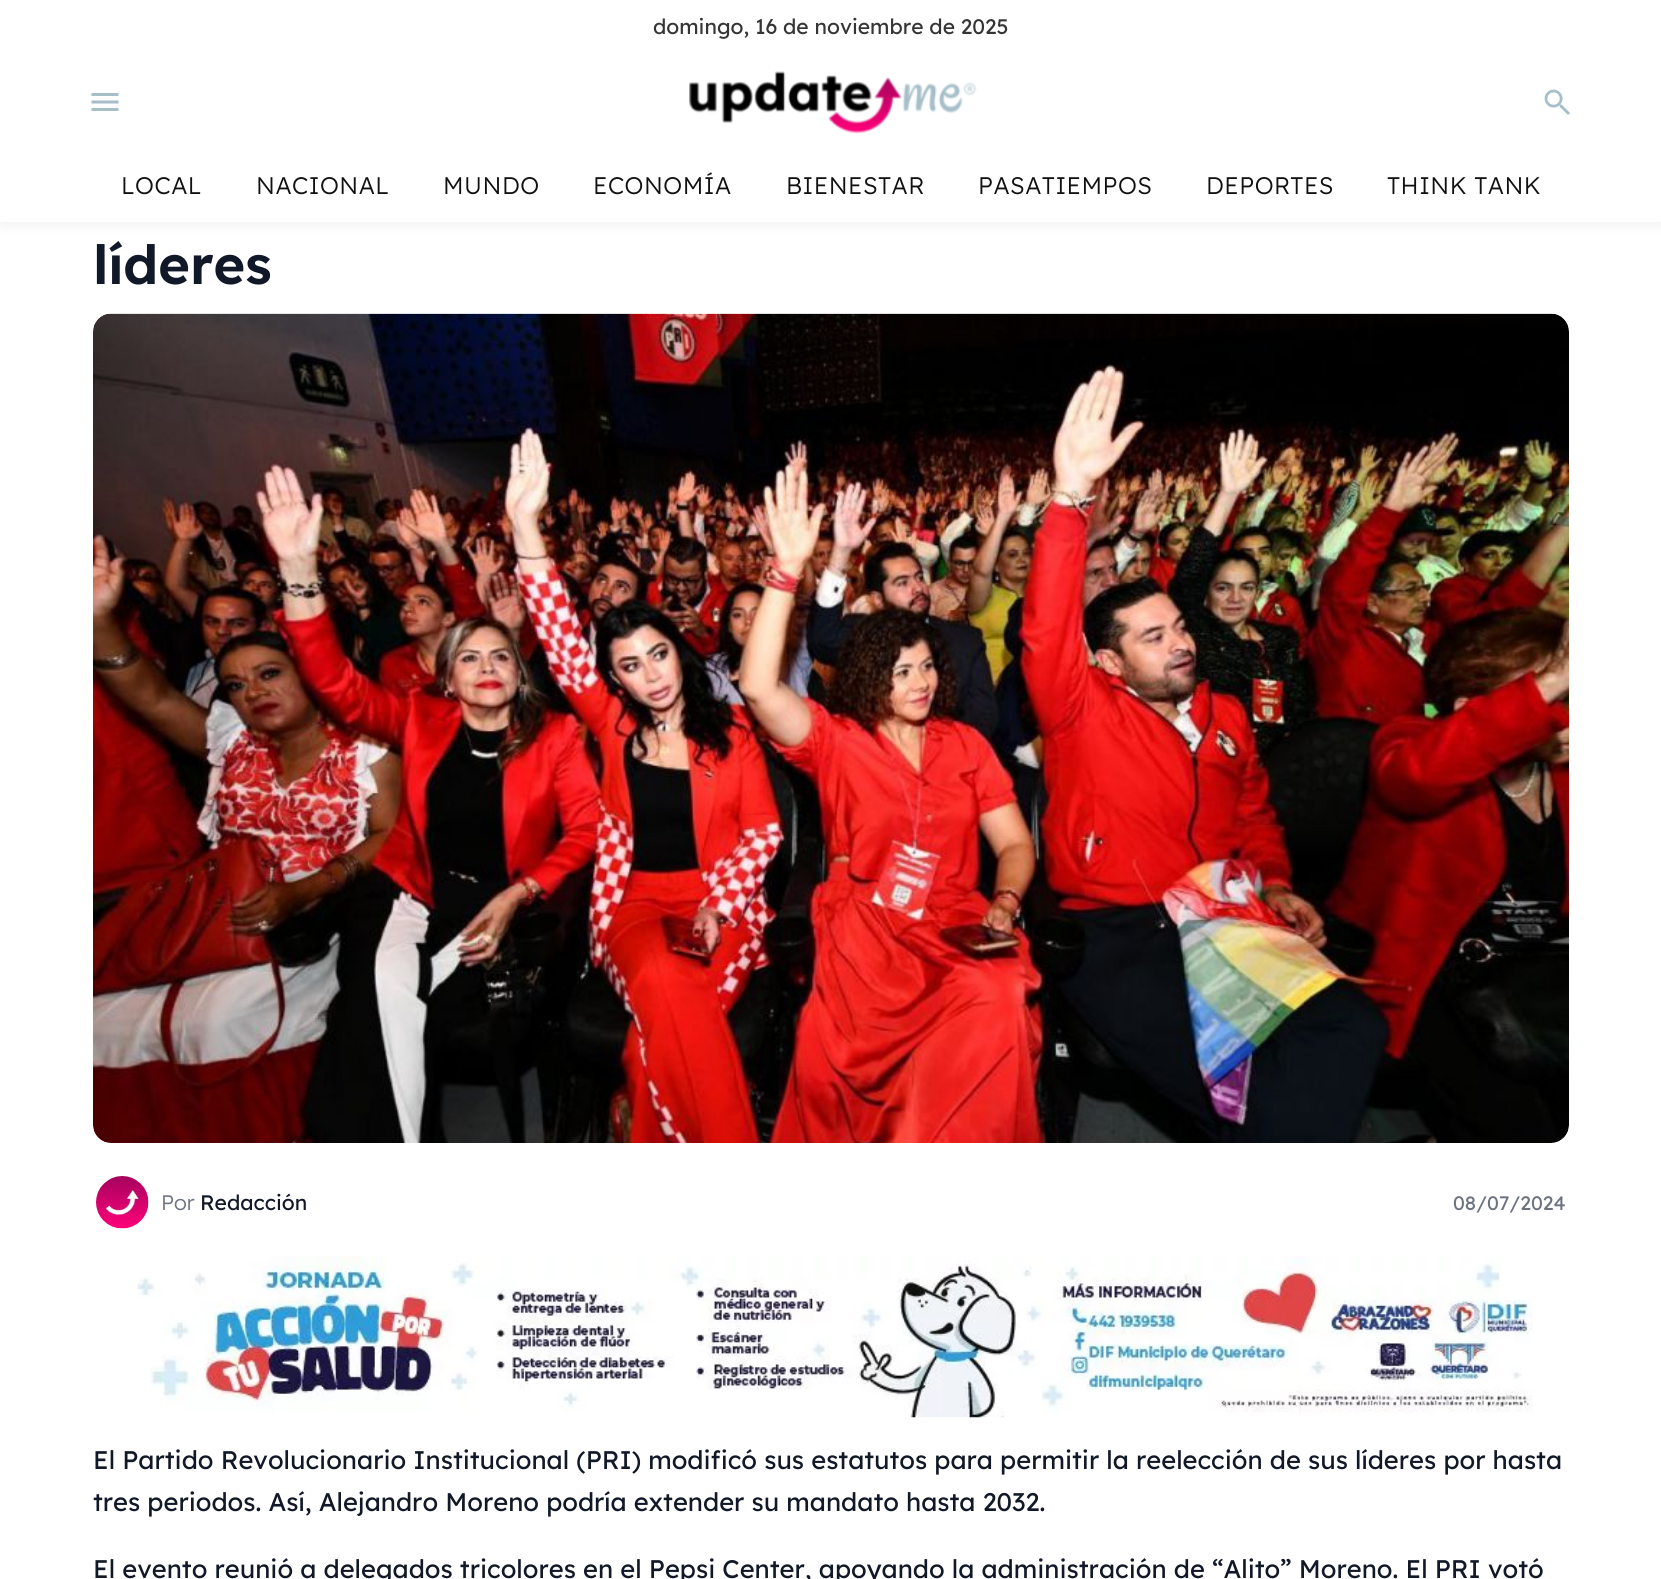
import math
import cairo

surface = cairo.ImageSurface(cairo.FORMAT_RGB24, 1661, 1579)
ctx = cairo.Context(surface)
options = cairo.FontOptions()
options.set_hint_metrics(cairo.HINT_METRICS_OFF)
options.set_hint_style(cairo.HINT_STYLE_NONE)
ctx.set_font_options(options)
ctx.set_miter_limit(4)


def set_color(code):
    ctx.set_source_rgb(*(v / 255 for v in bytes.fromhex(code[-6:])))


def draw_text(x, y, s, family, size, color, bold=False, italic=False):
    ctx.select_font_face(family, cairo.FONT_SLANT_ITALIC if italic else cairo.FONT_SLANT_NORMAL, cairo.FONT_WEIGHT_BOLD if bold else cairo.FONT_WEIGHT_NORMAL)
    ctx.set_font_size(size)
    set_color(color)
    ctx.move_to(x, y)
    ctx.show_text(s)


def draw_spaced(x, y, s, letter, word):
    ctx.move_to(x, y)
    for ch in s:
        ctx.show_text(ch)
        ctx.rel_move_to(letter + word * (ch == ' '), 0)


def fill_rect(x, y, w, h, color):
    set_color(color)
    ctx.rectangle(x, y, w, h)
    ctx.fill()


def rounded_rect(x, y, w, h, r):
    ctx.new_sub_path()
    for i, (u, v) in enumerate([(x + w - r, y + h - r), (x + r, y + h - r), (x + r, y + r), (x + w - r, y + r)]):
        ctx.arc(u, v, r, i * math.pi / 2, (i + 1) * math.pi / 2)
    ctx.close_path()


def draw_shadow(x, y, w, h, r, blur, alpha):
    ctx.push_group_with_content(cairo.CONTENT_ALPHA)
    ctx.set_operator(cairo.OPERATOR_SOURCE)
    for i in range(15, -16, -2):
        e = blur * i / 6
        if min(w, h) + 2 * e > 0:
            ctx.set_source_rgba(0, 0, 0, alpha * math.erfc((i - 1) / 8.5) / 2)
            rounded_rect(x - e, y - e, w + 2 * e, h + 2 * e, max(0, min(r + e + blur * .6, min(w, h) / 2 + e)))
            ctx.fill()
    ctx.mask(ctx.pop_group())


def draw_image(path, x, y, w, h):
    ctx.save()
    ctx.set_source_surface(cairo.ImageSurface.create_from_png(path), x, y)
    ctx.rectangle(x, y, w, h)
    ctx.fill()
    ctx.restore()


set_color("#ffffff")
ctx.paint()
set_color("#000000")
draw_shadow(0, 3, 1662, 222, 0, 7.5, 0.06)
fill_rect(0, 0, 1661, 222, "#ffffff")
draw_text(653, 34, "domingo, 16 de noviembre de 2025", "Lexend", 21, "#353535")
draw_image("assets/img1.png", 91, 93, 28, 18)
draw_image("assets/img2.png", 689, 71, 288, 63)
draw_image("assets/img3.png", 1544, 89, 26, 26)
ctx.select_font_face("Lexend Light")
ctx.set_font_size(24)
set_color("#111111")
draw_spaced(121, 194, "LOCAL", 0.5, 0)
draw_spaced(256, 194, "NACIONAL", 0.5, 0)
draw_spaced(443, 194, "MUNDO", 0.5, 0)
draw_spaced(593, 194, "ECONOMÍA", 0.5, 0)
draw_spaced(786, 194, "BIENESTAR", 0.5, 0)
draw_spaced(978, 194, "PASATIEMPOS", 0.5, 0)
draw_spaced(1206, 194, "DEPORTES", 0.5, 0)
draw_spaced(1387, 194, "THINK TANK", 0.5, 0)
draw_text(93, 284, "líderes", "Lexend SemiBold", 54, "#111827")
set_color("#f3f4f6")
rounded_rect(93, 314, 1476, 829, 18)
ctx.fill()
draw_image("assets/img4.png", 93, 313, 1476, 830)
draw_image("assets/img5.png", 96, 1176, 53, 53)
draw_text(161, 1210, "Por", "Lexend Light", 21, "#6b7280")
draw_text(200, 1210, "Redacción", "Lexend", 21, "#111827")
draw_text(1453, 1210, "08/07/2024", "Lexend", 19.5, "#6b7280")
draw_image("assets/img6.png", 137, 1256, 1396, 162)
draw_text(93, 1469, "El Partido Revolucionario Institucional (PRI) modificó sus estatutos para permitir la reelección de sus líderes por hasta", "Lexend", 25.5, "#111827")
draw_text(93, 1511, "tres periodos. Así, Alejandro Moreno podría extender su mandato hasta 2032.", "Lexend", 25.5, "#111827")
draw_text(93, 1578, "El evento reunió a delegados tricolores en el Pepsi Center, apoyando la administración de “Alito” Moreno. El PRI votó", "Lexend", 25.5, "#111827")
surface.write_to_png("output.png")
